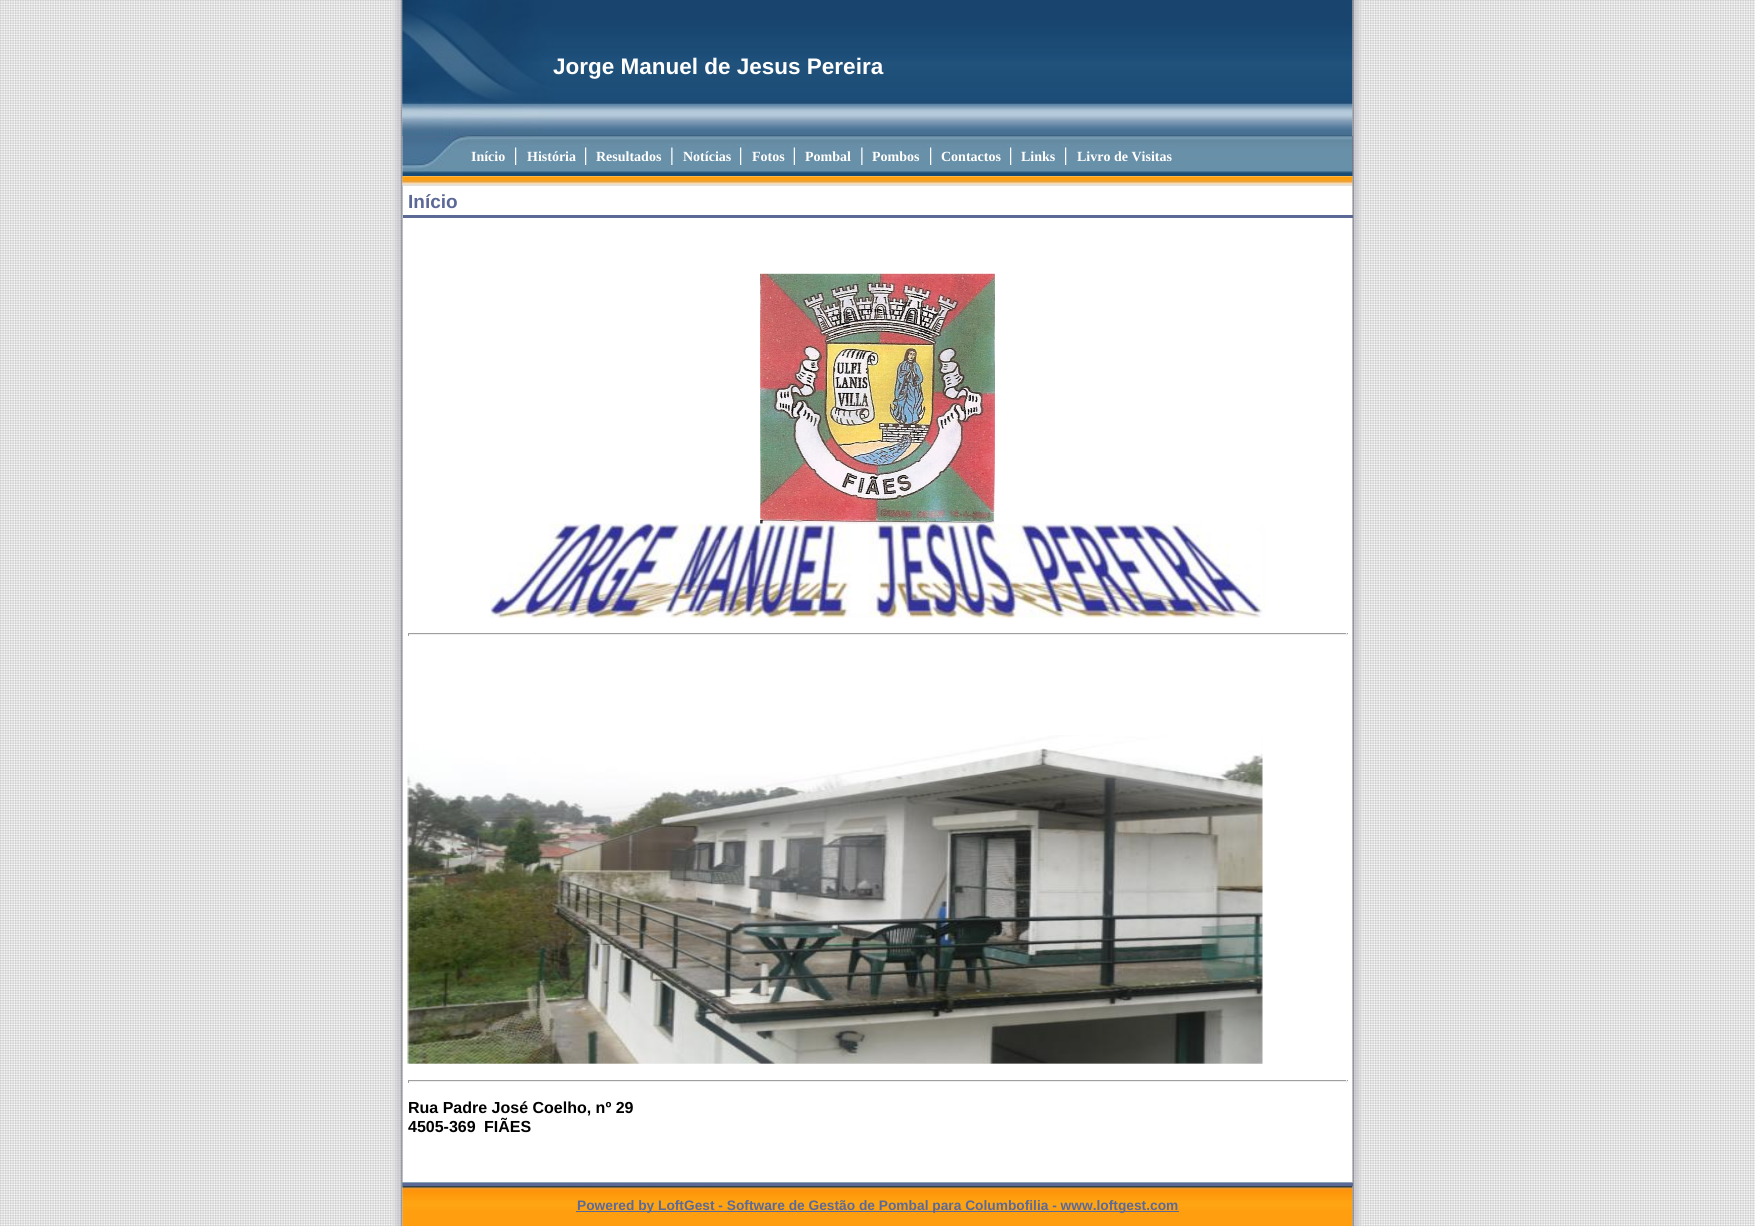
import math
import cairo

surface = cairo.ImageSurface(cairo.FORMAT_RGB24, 1755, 1226)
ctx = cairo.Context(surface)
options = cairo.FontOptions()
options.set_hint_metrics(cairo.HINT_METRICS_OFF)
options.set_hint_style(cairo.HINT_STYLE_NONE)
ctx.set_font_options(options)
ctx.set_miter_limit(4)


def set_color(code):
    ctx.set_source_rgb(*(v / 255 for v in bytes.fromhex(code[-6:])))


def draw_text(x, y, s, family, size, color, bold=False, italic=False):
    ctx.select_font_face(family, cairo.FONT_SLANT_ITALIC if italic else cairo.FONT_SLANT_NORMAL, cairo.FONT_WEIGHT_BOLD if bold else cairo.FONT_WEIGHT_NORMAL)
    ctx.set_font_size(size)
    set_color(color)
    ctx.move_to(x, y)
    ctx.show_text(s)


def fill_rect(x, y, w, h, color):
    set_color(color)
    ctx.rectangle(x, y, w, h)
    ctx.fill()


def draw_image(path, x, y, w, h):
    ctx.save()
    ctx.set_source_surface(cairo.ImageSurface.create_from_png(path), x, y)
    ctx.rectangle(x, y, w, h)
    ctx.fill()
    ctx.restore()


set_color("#f0f0f0")
ctx.paint()
draw_image("assets/img1.png", 0, 0, 393, 1226)
draw_image("assets/img2.png", 392, 0, 11, 1226)
draw_image("assets/img3.png", 402, 0, 951, 137)
draw_image("assets/img4.png", 402, 0, 151, 137)
draw_text(553, 74, "Jorge Manuel de Jesus Pereira", "Liberation Sans", 22.5, "#ffffff", bold=True)
fill_rect(403, 136, 950, 40, "#5c6996")
draw_image("assets/img5.png", 402, 136, 951, 41)
fill_rect(468, 145, 41, 2, "#6890a9")
draw_text(471, 161, "Início", "Liberation Serif", 14, "#ffffff", bold=True)
fill_rect(511, 144, 1, 2, "#6890a9")
draw_image("assets/img6.png", 515, 147, 2, 18)
fill_rect(523, 145, 56, 2, "#6890a9")
draw_text(527, 161, "História", "Liberation Serif", 14, "#ffffff", bold=True)
fill_rect(581, 144, 9, 2, "#6890a9")
draw_image("assets/img6.png", 585, 147, 2, 18)
fill_rect(593, 145, 72, 1, "#6890a9")
draw_text(596, 161, "Resultados", "Liberation Serif", 14, "#ffffff", bold=True)
fill_rect(668, 144, 8, 2, "#6890a9")
draw_image("assets/img7.png", 671, 147, 2, 18)
fill_rect(679, 145, 55, 1, "#6890a9")
draw_text(683, 161, "Notícias", "Liberation Serif", 14, "#ffffff", bold=True)
fill_rect(736, 144, 9, 2, "#6890a9")
draw_image("assets/img6.png", 740, 147, 2, 18)
fill_rect(748, 145, 40, 1, "#6890a9")
draw_text(752, 161, "Fotos", "Liberation Serif", 14, "#ffffff", bold=True)
fill_rect(790, 144, 9, 2, "#6890a9")
draw_image("assets/img8.png", 793, 147, 2, 18)
fill_rect(801, 145, 54, 1, "#6890a9")
draw_text(805, 161, "Pombal", "Liberation Serif", 14, "#ffffff", bold=True)
fill_rect(858, 144, 8, 2, "#6890a9")
draw_image("assets/img7.png", 861, 147, 2, 18)
fill_rect(869, 145, 55, 1, "#6890a9")
draw_text(872, 161, "Pombos", "Liberation Serif", 14, "#ffffff", bold=True)
fill_rect(926, 144, 9, 2, "#6890a9")
draw_image("assets/img6.png", 930, 147, 2, 18)
fill_rect(938, 145, 66, 1, "#6890a9")
draw_text(941, 161, "Contactos", "Liberation Serif", 14, "#ffffff", bold=True)
fill_rect(1006, 144, 9, 2, "#6890a9")
draw_image("assets/img6.png", 1010, 147, 2, 18)
fill_rect(1018, 145, 41, 1, "#6890a9")
draw_text(1021, 161, "Links", "Liberation Serif", 14, "#ffffff", bold=True)
fill_rect(1061, 144, 9, 2, "#6890a9")
draw_image("assets/img6.png", 1065, 147, 2, 18)
fill_rect(1073, 145, 102, 1, "#6890a9")
draw_text(1077, 161, "Livro de Visitas", "Liberation Serif", 14, "#ffffff", bold=True)
fill_rect(403, 176, 950, 10, "#ffffff")
draw_image("assets/img9.png", 402, 176, 951, 11)
fill_rect(403, 186, 950, 997, "#ffffff")
draw_image("assets/img13.png", 402, 1182, 951, 44)
draw_image("assets/img14.png", 1352, 0, 11, 1226)
fill_rect(403, 215, 950, 3, "#5c6996")
draw_text(408, 208, "Início", "Liberation Sans", 19, "#5c6996", bold=True)
draw_image("assets/img10.png", 760, 273, 235, 251)
draw_image("assets/img11.png", 490, 523, 775, 95)
fill_rect(408, 633, 940, 1, "#9f9f9f")
fill_rect(1346, 633, 1, 3, "#eeeeee")
fill_rect(408, 634, 940, 1, "#eeeeee")
fill_rect(408, 633, 1, 3, "#9f9f9f")
draw_image("assets/img12.png", 407, 735, 856, 329)
fill_rect(408, 1080, 940, 1, "#9f9f9f")
fill_rect(1346, 1080, 1, 3, "#eeeeee")
fill_rect(408, 1081, 940, 1, "#eeeeee")
fill_rect(408, 1080, 1, 3, "#9f9f9f")
draw_text(408, 1113, "Rua Padre José Coelho, nº 29", "Liberation Sans", 16, "#000000", bold=True)
draw_text(408, 1132, "4505-369", "Liberation Sans", 16, "#000000", bold=True)
draw_text(484, 1132, "FIÃES", "Liberation Sans", 16, "#000000", bold=True)
fill_rect(403, 1183, 950, 3, "#5c6996")
fill_rect(576, 1211, 603, 1, "#5c6996")
draw_text(577, 1210, "Powered by LoftGest - Software de Gestão de Pombal para Columbofilia - www.loftgest.com", "Liberation Sans", 13.75, "#5c6996", bold=True)
draw_image("assets/img15.png", 1362, 0, 393, 1226)
surface.write_to_png("output.png")
